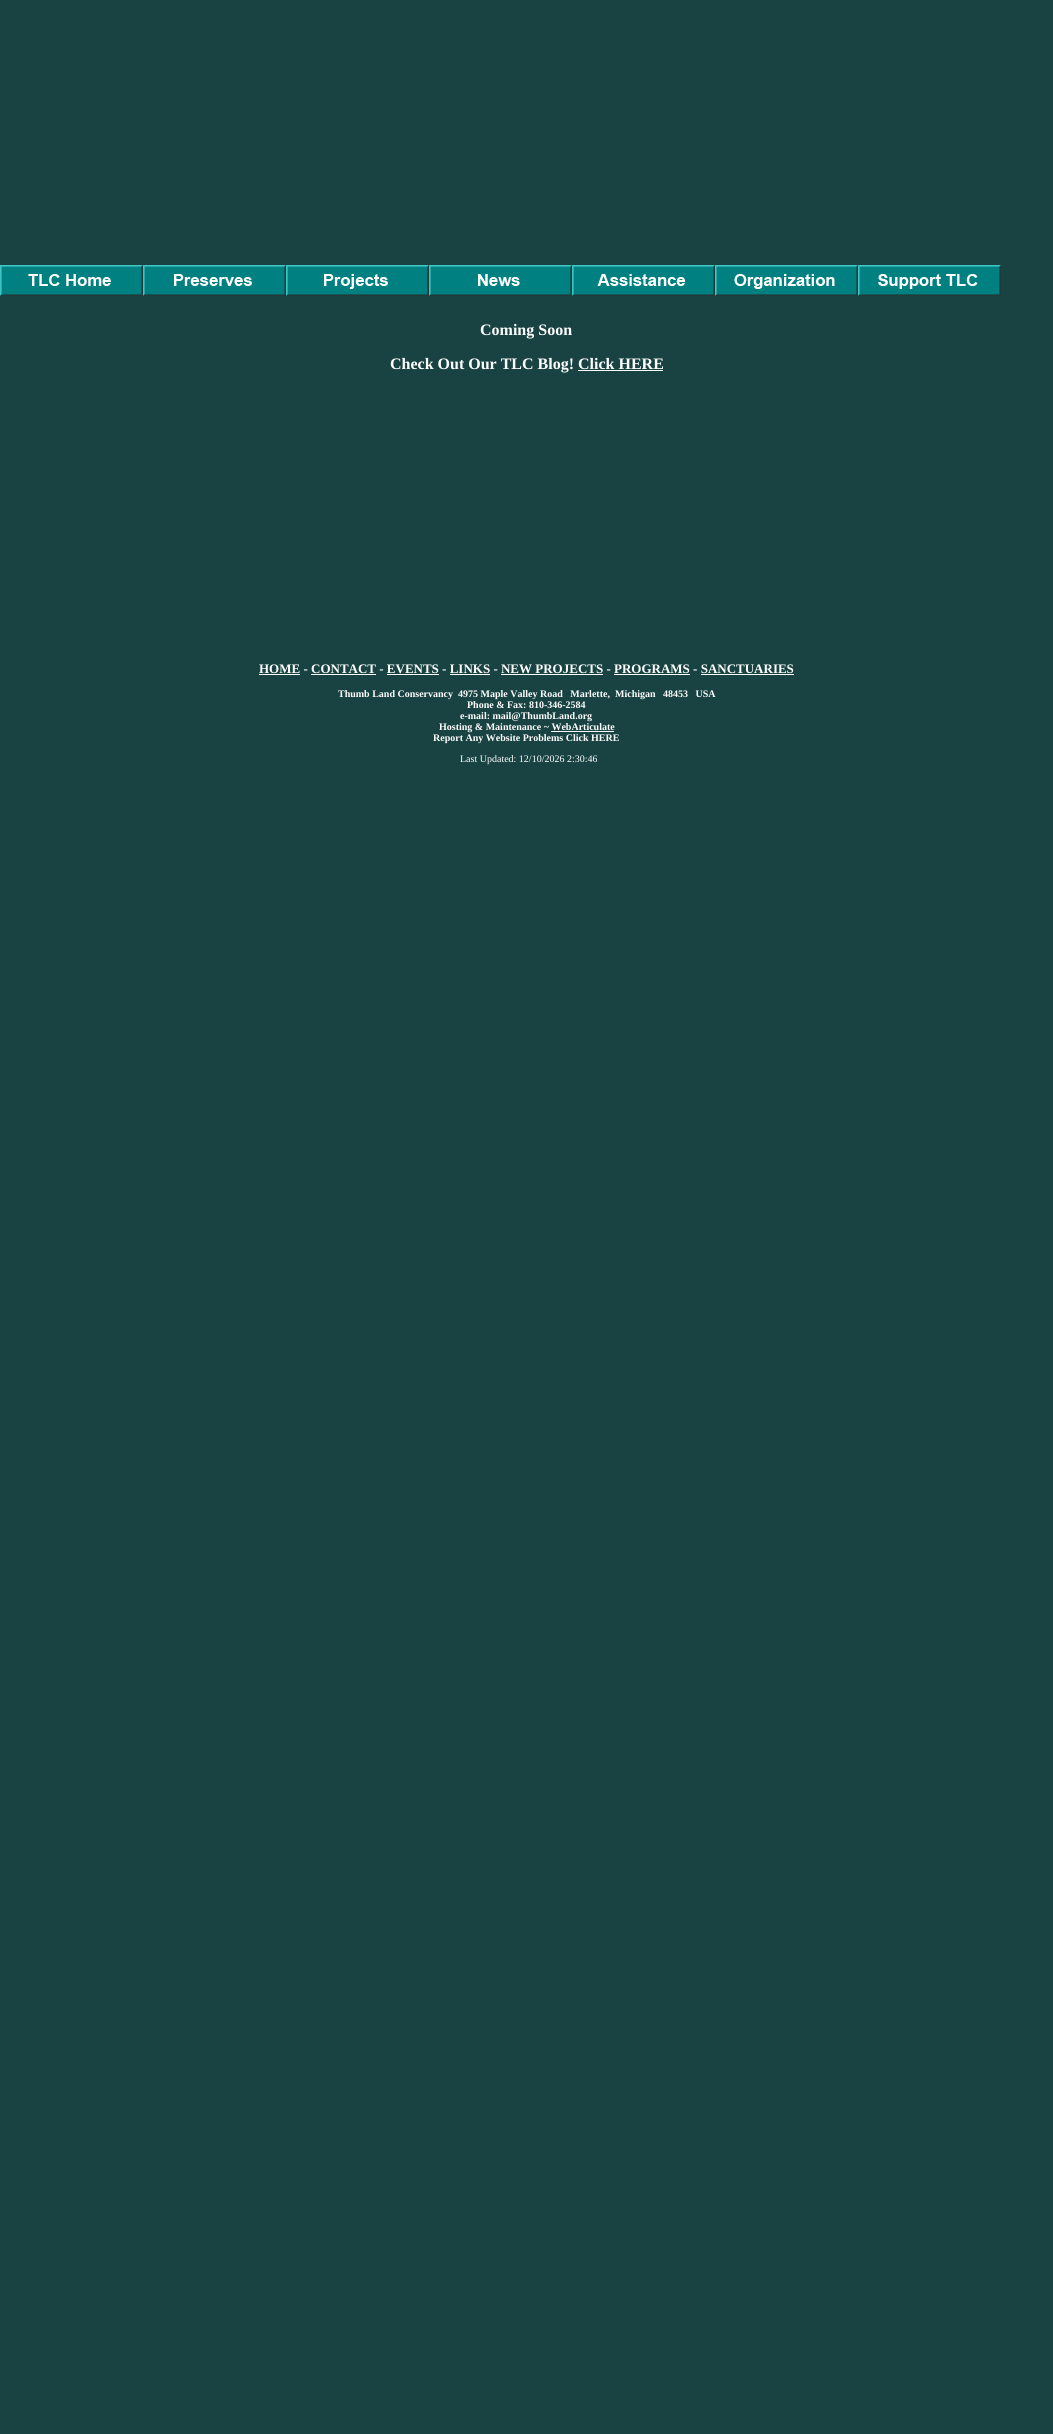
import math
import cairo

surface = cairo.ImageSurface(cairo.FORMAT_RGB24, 1053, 2434)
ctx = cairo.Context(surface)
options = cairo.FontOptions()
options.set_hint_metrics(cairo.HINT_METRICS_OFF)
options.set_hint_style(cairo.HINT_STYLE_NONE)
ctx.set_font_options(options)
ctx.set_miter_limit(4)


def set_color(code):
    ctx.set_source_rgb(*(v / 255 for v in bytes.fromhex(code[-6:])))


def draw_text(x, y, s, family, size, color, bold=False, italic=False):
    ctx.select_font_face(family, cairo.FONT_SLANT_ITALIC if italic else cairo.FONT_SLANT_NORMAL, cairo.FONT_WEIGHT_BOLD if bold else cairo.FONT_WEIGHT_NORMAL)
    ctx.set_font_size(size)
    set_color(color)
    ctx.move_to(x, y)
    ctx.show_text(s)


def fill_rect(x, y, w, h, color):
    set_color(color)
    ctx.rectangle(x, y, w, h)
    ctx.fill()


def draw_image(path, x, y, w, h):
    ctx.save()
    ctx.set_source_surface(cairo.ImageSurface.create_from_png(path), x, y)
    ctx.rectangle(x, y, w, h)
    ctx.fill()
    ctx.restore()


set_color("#184342")
ctx.paint()
draw_image("assets/img1.png", 0, 265, 143, 31)
draw_image("assets/img2.png", 143, 265, 143, 31)
draw_image("assets/img3.png", 286, 265, 143, 31)
draw_image("assets/img4.png", 429, 265, 143, 31)
draw_image("assets/img5.png", 572, 265, 143, 31)
draw_image("assets/img6.png", 715, 265, 143, 31)
draw_image("assets/img7.png", 858, 265, 143, 31)
draw_text(480, 335, "Coming Soon", "Liberation Serif", 16, "#ffffff", bold=True)
draw_text(390, 369, "Check Out Our TLC Blog! Click HERE", "Liberation Serif", 16, "#ffffff", bold=True)
fill_rect(578, 370, 85, 1, "#ffffff")
draw_text(259, 673, "HOME - CONTACT - EVENTS - LINKS - NEW PROJECTS - PROGRAMS - SANCTUARIES", "Liberation Serif", 13, "#ffffff", bold=True)
fill_rect(259, 674, 41, 1, "#ffffff")
fill_rect(311, 674, 65, 1, "#ffffff")
fill_rect(387, 674, 52, 1, "#ffffff")
fill_rect(450, 674, 40, 1, "#ffffff")
fill_rect(501, 674, 102, 1, "#ffffff")
fill_rect(614, 674, 76, 1, "#ffffff")
fill_rect(701, 674, 93, 1, "#ffffff")
draw_text(338, 697, "Thumb Land Conservancy  4975 Maple Valley Road   Marlette,", "Liberation Serif", 10, "#ffffff", bold=True)
draw_text(615, 697, "Michigan   48453   USA", "Liberation Serif", 10, "#ffffff", bold=True)
draw_text(467, 708, "Phone & Fax: 810-346-2584", "Liberation Serif", 10, "#ffffff", bold=True)
draw_text(460, 719, "e-mail: mail@ThumbLand.org", "Liberation Serif", 10, "#ffffff", bold=True)
draw_text(439, 730, "Hosting & Maintenance ~ WebArticulate", "Liberation Serif", 10, "#ffffff", bold=True)
fill_rect(551, 731, 63, 1, "#ffffff")
draw_text(433, 741, "Report Any Website Problems Click HERE", "Liberation Serif", 10, "#ffffff", bold=True)
draw_text(460, 762, "Last Updated: 12/10/2026 2:30:46", "Liberation Serif", 10, "#ffffff")
surface.write_to_png("output.png")
